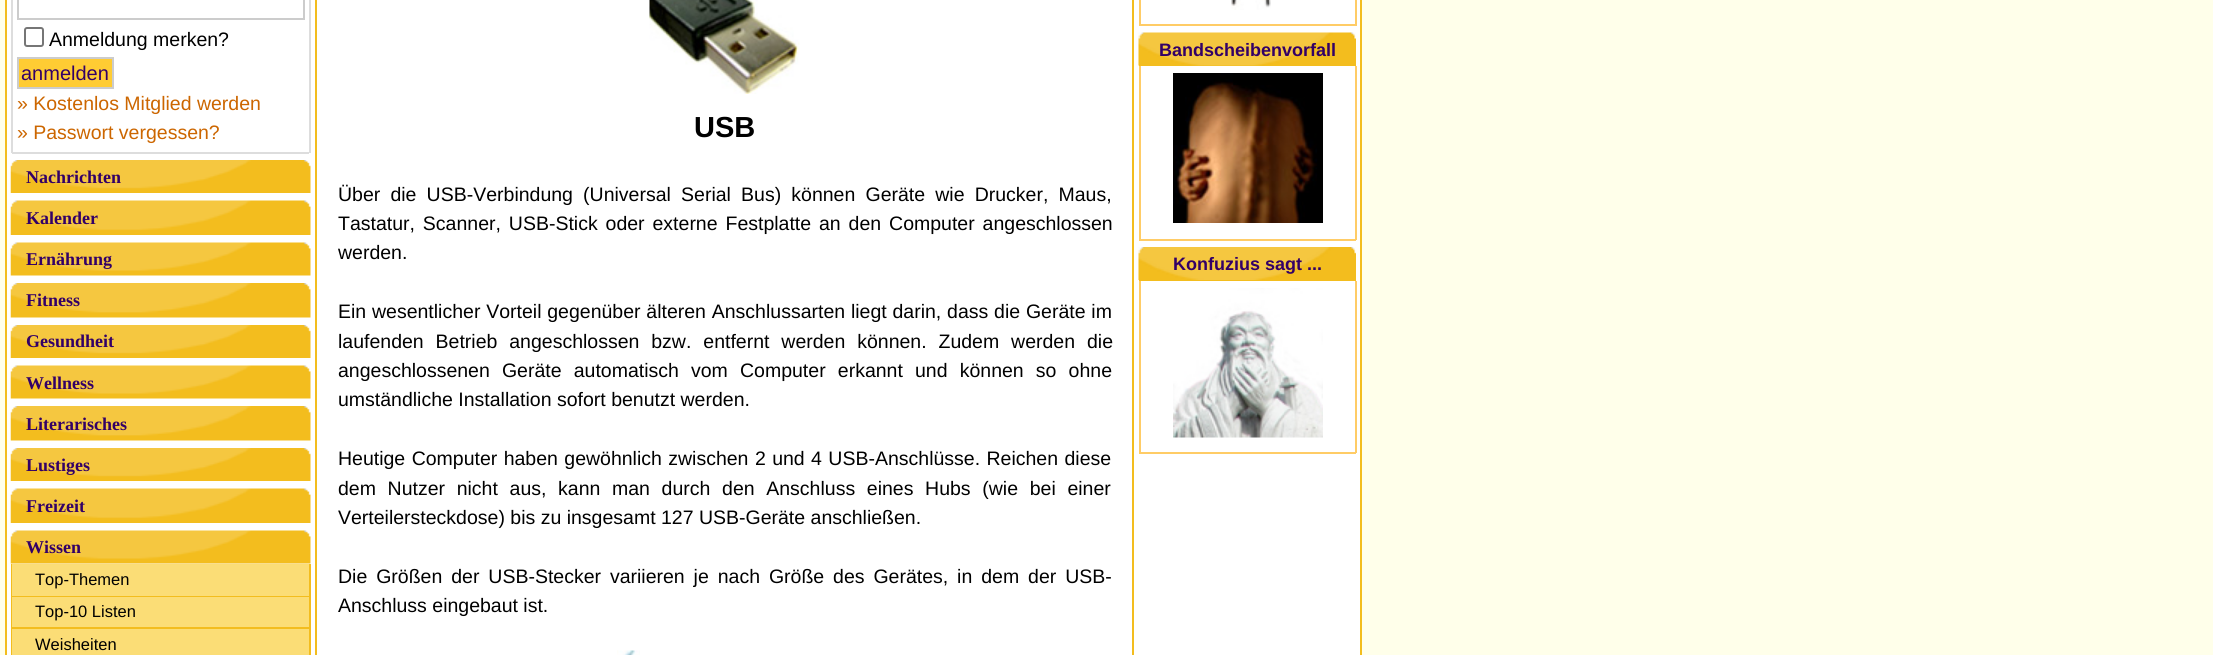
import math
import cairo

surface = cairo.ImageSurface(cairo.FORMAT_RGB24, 2213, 655)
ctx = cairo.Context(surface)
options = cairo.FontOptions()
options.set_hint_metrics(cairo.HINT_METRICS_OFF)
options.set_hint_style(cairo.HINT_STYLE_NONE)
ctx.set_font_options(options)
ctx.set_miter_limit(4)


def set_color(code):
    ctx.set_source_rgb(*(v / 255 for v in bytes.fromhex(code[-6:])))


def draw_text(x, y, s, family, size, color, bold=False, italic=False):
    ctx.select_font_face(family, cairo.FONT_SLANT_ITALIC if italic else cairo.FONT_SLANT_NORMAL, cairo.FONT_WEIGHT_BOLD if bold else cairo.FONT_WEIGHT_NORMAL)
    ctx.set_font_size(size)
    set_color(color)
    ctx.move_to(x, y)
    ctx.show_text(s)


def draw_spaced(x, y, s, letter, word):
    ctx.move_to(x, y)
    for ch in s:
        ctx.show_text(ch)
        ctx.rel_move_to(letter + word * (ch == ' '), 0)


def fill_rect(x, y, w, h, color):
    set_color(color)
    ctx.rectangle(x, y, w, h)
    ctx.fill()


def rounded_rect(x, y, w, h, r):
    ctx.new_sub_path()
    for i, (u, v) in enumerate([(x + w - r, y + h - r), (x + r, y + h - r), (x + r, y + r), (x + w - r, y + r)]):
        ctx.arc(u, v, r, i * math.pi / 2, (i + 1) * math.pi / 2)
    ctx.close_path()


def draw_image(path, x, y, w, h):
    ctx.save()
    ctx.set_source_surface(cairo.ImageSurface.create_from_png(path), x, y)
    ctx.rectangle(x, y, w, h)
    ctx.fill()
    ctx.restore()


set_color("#ffffea")
ctx.paint()
set_color("#ffffff")
ctx.rectangle(6, -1, 1355, 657)
ctx.fill_preserve()
set_color("#f3bd1e")
ctx.stroke()
fill_rect(309, 0, 2, 153, "#dddddd")
fill_rect(11, 0, 2, 153, "#dddddd")
fill_rect(12, 152, 297, 2, "#dddddd")
ctx.rectangle(18, -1, 286, 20)
set_color("#cccccc")
ctx.stroke()
rounded_rect(25, 28, 18, 18, 2)
set_color("#767676")
ctx.stroke()
draw_text(49, 46, "Anmeldung merken?", "Liberation Sans", 19.5, "#000000")
set_color("#ffcc33")
ctx.rectangle(18, 58, 95, 30)
ctx.fill_preserve()
set_color("#cccccc")
ctx.stroke()
draw_text(21, 80, "anmelden", "Liberation Sans", 20, "#330066")
draw_text(17, 110, "» Kostenlos Mitglied werden", "Liberation Sans", 19.5, "#cc6600")
draw_text(17, 139, "» Passwort vergessen?", "Liberation Sans", 19.5, "#cc6600")
draw_image("assets/img1.png", 10, 160, 301, 33)
draw_text(26, 183, "Nachrichten", "Liberation Serif", 18, "#330066", bold=True)
draw_image("assets/img2.png", 10, 200, 301, 35)
draw_text(26, 224, "Kalender", "Liberation Serif", 18, "#330066", bold=True)
draw_image("assets/img3.png", 10, 242, 301, 34)
draw_text(26, 265, "Ernährung", "Liberation Serif", 18, "#330066", bold=True)
draw_image("assets/img4.png", 10, 283, 301, 35)
draw_text(26, 306, "Fitness", "Liberation Serif", 18, "#330066", bold=True)
draw_image("assets/img1.png", 10, 325, 301, 33)
draw_text(26, 347, "Gesundheit", "Liberation Serif", 18, "#330066", bold=True)
draw_image("assets/img5.png", 10, 365, 301, 34)
draw_text(26, 389, "Wellness", "Liberation Serif", 18, "#330066", bold=True)
draw_image("assets/img4.png", 10, 406, 301, 35)
draw_text(26, 430, "Literarisches", "Liberation Serif", 18, "#330066", bold=True)
draw_image("assets/img1.png", 10, 448, 301, 33)
draw_text(26, 471, "Lustiges", "Liberation Serif", 18, "#330066", bold=True)
draw_image("assets/img2.png", 10, 488, 301, 35)
draw_text(26, 512, "Freizeit", "Liberation Serif", 18, "#330066", bold=True)
draw_image("assets/img5.png", 10, 530, 301, 34)
draw_text(26, 553, "Wissen", "Liberation Serif", 18, "#330066", bold=True)
fill_rect(309, 564, 2, 91, "#f3bd1e")
fill_rect(11, 596, 300, 1, "#f3bd1e")
fill_rect(11, 564, 2, 33, "#f3bd1e")
fill_rect(12, 564, 297, 32, "#fbdd76")
draw_text(35, 585, "Top-Themen", "Liberation Sans", 16.5, "#000000")
fill_rect(11, 627, 300, 2, "#f3bd1e")
fill_rect(11, 597, 2, 32, "#f3bd1e")
fill_rect(12, 597, 297, 30, "#fbdd76")
draw_text(35, 617, "Top-10 Listen", "Liberation Sans", 16.5, "#000000")
fill_rect(11, 629, 1, 26, "#f3bd1e")
fill_rect(12, 629, 297, 26, "#fbdd76")
draw_text(35, 650, "Weisheiten", "Liberation Sans", 16.5, "#000000")
ctx.rectangle(316, -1, 817, 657)
set_color("#f3bd1e")
ctx.stroke()
draw_image("assets/img6.png", 649, 0, 151, 94)
draw_text(694, 137, "USB", "Liberation Sans", 29, "#000000", bold=True)
ctx.select_font_face("Liberation Sans")
ctx.set_font_size(19.5)
draw_spaced(338, 201, "Über die USB-Verbindung (Universal Serial Bus) können Geräte wie Drucker, Maus,", 0, 4.75)
draw_spaced(338, 230, "Tastatur, Scanner, USB-Stick oder externe Festplatte an den Computer angeschlossen", 0, 2.5)
draw_text(338, 259, "werden.", "Liberation Sans", 19.5, "#000000")
draw_spaced(338, 318, "Ein wesentlicher Vorteil gegenüber älteren Anschlussarten liegt darin, dass die Geräte im", 0, 0.4)
draw_spaced(338, 348, "laufenden Betrieb angeschlossen bzw. entfernt werden können. Zudem werden die", 0, 6.5)
draw_spaced(338, 377, "angeschlossenen Geräte automatisch vom Computer erkannt und können so ohne", 0, 6.75)
draw_text(338, 406, "umständliche Installation sofort benutzt werden.", "Liberation Sans", 19.5, "#000000")
draw_spaced(338, 465, "Heutige Computer haben gewöhnlich zwischen 2 und 4 USB-Anschlüsse. Reichen diese", 0, 1)
draw_spaced(338, 495, "dem Nutzer nicht aus, kann man durch den Anschluss eines Hubs (wie bei einer", 0, 6.25)
draw_text(338, 524, "Verteilersteckdose) bis zu insgesamt 127 USB-Geräte anschließen.", "Liberation Sans", 19.5, "#000000")
draw_spaced(338, 583, "Die Größen der USB-Stecker variieren je nach Größe des Gerätes, in dem der USB-", 0, 3.5)
draw_text(338, 612, "Anschluss eingebaut ist.", "Liberation Sans", 19.5, "#000000")
draw_image("assets/img7.png", 617, 650, 23, 5)
fill_rect(1355, 0, 2, 26, "#ffcc66")
fill_rect(1139, 24, 217, 2, "#ffcc66")
fill_rect(1139, 0, 2, 26, "#ffcc66")
draw_image("assets/img8.png", 1231, 0, 40, 10)
fill_rect(1139, 65, 217, 1, "#f3bd1e")
draw_image("assets/img9.png", 1138, 32, 218, 34)
draw_text(1159, 56, "Bandscheibenvorfall", "Liberation Sans", 18, "#330066", bold=True)
fill_rect(1355, 66, 2, 174, "#ffcc66")
fill_rect(1139, 239, 217, 2, "#ffcc66")
fill_rect(1139, 66, 2, 174, "#ffcc66")
draw_image("assets/img10.png", 1173, 73, 150, 150)
fill_rect(1139, 280, 217, 1, "#f3bd1e")
draw_image("assets/img11.png", 1138, 247, 218, 33)
draw_text(1173, 270, "Konfuzius sagt ...", "Liberation Sans", 18, "#330066", bold=True)
fill_rect(1355, 281, 2, 172, "#ffcc66")
fill_rect(1139, 452, 217, 2, "#ffcc66")
fill_rect(1139, 281, 2, 172, "#ffcc66")
draw_image("assets/img12.png", 1173, 288, 150, 150)
surface.write_to_png("output.png")
